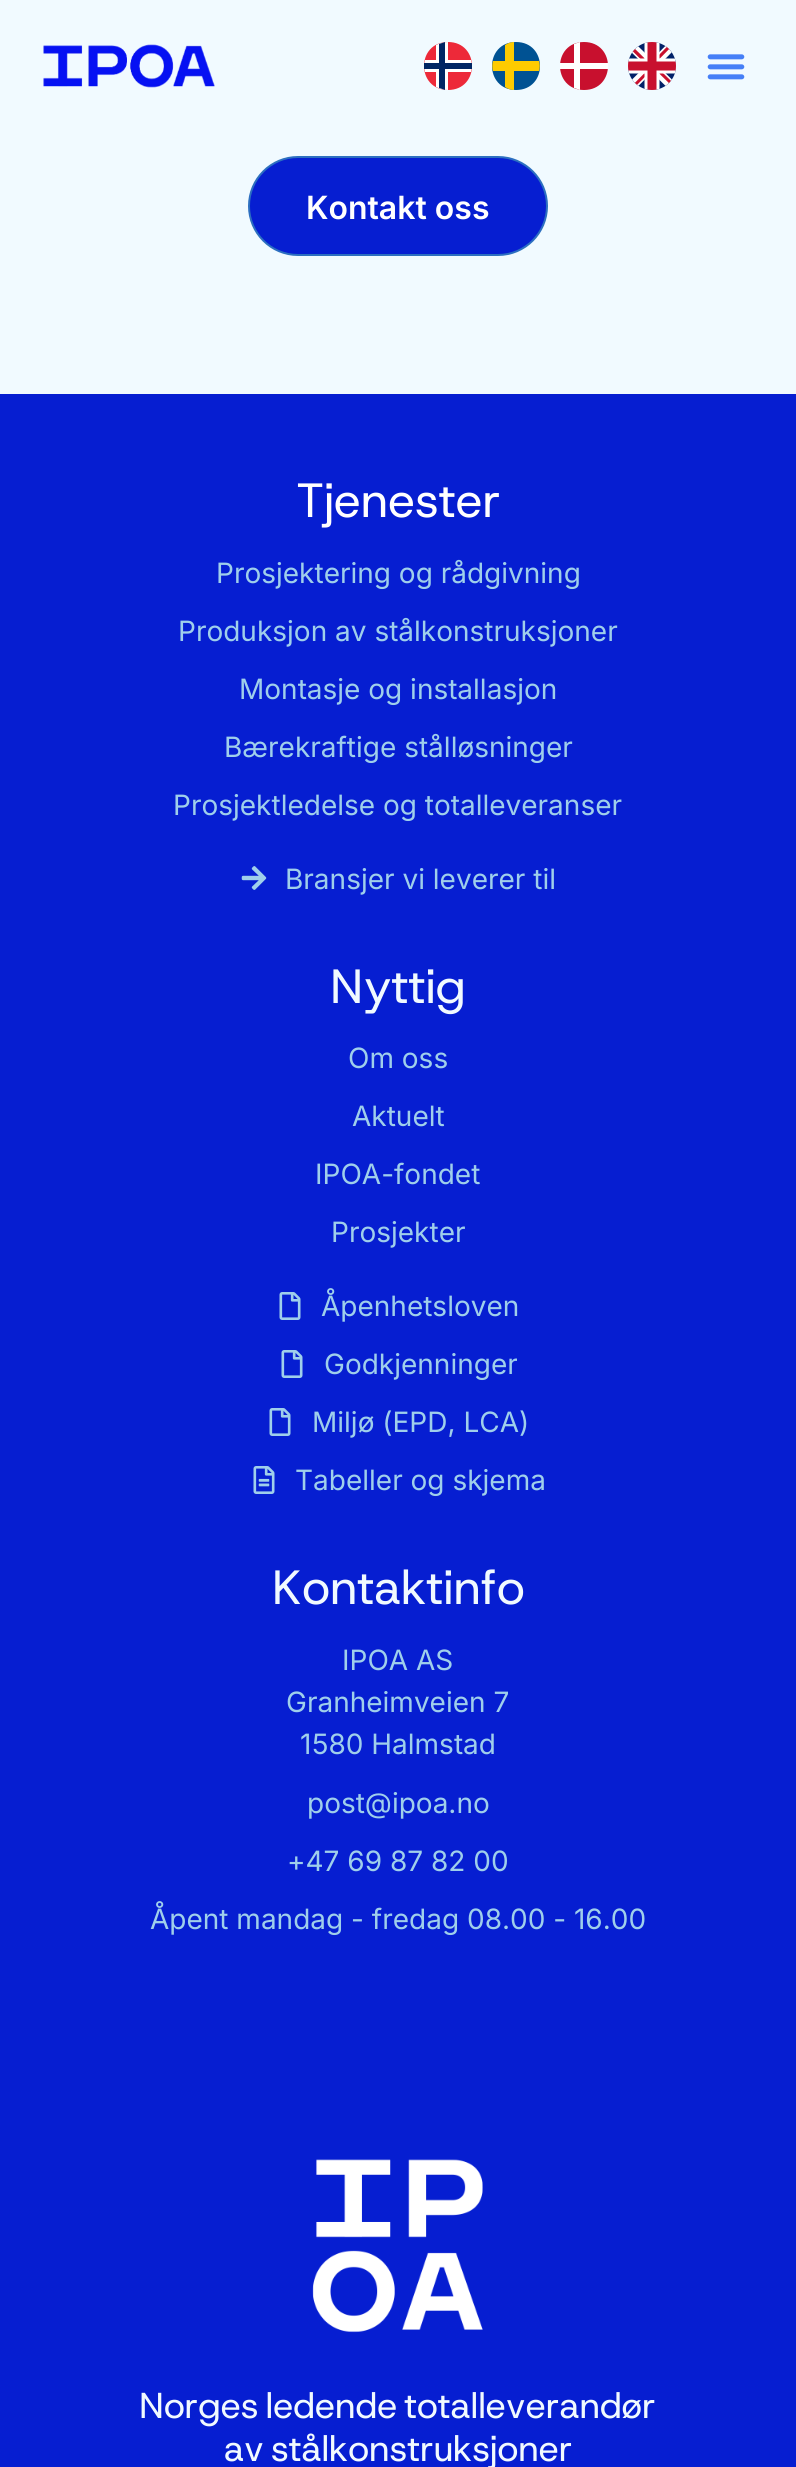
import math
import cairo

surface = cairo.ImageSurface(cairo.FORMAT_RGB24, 796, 2467)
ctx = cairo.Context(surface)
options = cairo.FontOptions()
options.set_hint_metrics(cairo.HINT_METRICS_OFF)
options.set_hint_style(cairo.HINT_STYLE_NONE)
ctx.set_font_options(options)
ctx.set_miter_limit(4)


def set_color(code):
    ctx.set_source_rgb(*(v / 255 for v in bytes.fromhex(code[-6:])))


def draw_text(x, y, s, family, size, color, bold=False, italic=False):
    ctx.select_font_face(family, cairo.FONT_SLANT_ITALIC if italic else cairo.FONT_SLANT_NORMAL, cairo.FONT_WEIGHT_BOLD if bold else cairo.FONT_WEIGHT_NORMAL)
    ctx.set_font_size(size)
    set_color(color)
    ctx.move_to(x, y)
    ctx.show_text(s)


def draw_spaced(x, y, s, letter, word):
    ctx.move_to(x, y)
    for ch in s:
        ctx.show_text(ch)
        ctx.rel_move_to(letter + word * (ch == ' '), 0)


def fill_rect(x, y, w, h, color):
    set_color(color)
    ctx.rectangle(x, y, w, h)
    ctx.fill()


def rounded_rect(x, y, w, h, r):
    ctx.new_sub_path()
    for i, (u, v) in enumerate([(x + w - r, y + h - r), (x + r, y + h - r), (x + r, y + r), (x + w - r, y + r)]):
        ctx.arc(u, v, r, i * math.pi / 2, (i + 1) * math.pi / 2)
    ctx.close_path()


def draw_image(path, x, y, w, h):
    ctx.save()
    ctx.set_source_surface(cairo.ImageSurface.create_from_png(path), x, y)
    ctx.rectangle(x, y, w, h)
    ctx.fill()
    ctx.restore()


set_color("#f1faff")
ctx.paint()
draw_image("assets/img1.png", 43, 44, 172, 44)
set_color("#ed2939")
ctx.new_path()
ctx.move_to(448, 42)
ctx.curve_to(480, 42, 480, 90, 448, 90)
ctx.curve_to(416, 90, 416, 42, 448, 42)
ctx.close_path()
ctx.fill()
set_color("#ffffff")
ctx.new_path()
ctx.move_to(448, 42)
ctx.line_to(448, 90)
ctx.curve_to(444, 90, 440, 89, 436, 87)
ctx.line_to(436, 45)
ctx.curve_to(440, 43, 444, 42, 448, 42)
ctx.close_path()
ctx.fill()
ctx.new_path()
ctx.move_to(425, 72)
ctx.curve_to(424, 68, 424, 64, 425, 60)
ctx.line_to(471, 60)
ctx.curve_to(472, 64, 472, 68, 471, 72)
ctx.close_path()
ctx.fill()
set_color("#002664")
ctx.new_path()
ctx.move_to(439, 44)
ctx.line_to(445, 42)
ctx.line_to(445, 90)
ctx.line_to(439, 88)
ctx.close_path()
ctx.fill()
fill_rect(424, 63, 48, 6, "#002664")
set_color("#005293")
ctx.new_path()
ctx.move_to(516, 42)
ctx.curve_to(548, 42, 548, 90, 516, 90)
ctx.curve_to(484, 90, 484, 42, 516, 42)
ctx.close_path()
ctx.fill()
set_color("#fecb00")
ctx.new_path()
ctx.move_to(514, 42)
ctx.curve_to(511, 42, 508, 43, 505, 45)
ctx.line_to(505, 61)
ctx.line_to(493, 61)
ctx.curve_to(492, 64, 492, 68, 493, 71)
ctx.line_to(505, 71)
ctx.line_to(505, 87)
ctx.curve_to(508, 89, 511, 90, 514, 90)
ctx.line_to(514, 71)
ctx.line_to(539, 71)
ctx.curve_to(540, 68, 540, 64, 539, 61)
ctx.line_to(514, 61)
ctx.close_path()
ctx.fill()
set_color("#c8102e")
ctx.new_path()
ctx.move_to(584, 42)
ctx.curve_to(616, 42, 616, 90, 584, 90)
ctx.curve_to(552, 90, 552, 42, 584, 42)
ctx.close_path()
ctx.fill()
set_color("#ffffff")
ctx.new_path()
ctx.move_to(574, 44)
ctx.line_to(580, 42)
ctx.line_to(580, 90)
ctx.line_to(574, 88)
ctx.close_path()
ctx.fill()
fill_rect(560, 63, 48, 6, "#ffffff")
draw_image("assets/img2.png", 628, 42, 48, 48)
draw_image("assets/img3.png", 707, 54, 38, 26)
set_color("#061ed1")
rounded_rect(249, 157, 298, 98, 49)
ctx.fill_preserve()
set_color("#2c6fc0")
ctx.stroke()
draw_text(306, 219, "Kontakt oss", "Inter SemiBold", 32, "#ffffff")
fill_rect(0, 394, 796, 2073, "#061ed1")
draw_text(296, 517, "Tjenester", "Host Grotesk", 48, "#ffffff")
draw_text(216, 583, "Prosjektering og rådgivning", "Inter", 28, "#9fcfeb")
draw_text(178, 641, "Produksjon av stålkonstruksjoner", "Inter", 28, "#9fcfeb")
draw_text(239, 699, "Montasje og installasjon", "Inter", 28, "#9fcfeb")
draw_text(224, 757, "Bærekraftige stålløsninger", "Inter", 28, "#9fcfeb")
draw_text(173, 815, "Prosjektledelse og totalleveranser", "Inter", 28, "#9fcfeb")
draw_image("assets/img4.png", 241, 866, 26, 24)
draw_text(285, 889, "Bransjer vi leverer til", "Inter", 28, "#9fcfeb")
draw_text(330, 1003, "Nyttig", "Host Grotesk", 48, "#f1faff")
draw_text(348, 1068, "Om oss", "Inter", 28, "#9fcfeb")
draw_text(352, 1126, "Aktuelt", "Inter", 28, "#9fcfeb")
draw_text(315, 1184, "IPOA-fondet", "Inter", 28, "#9fcfeb")
draw_text(331, 1242, "Prosjekter", "Inter", 28, "#9fcfeb")
draw_image("assets/img5.png", 279, 1292, 22, 28)
draw_text(321, 1316, "Åpenhetsloven", "Inter", 28, "#9fcfeb")
draw_image("assets/img5.png", 281, 1350, 22, 28)
draw_text(324, 1374, "Godkjenninger", "Inter", 28, "#9fcfeb")
draw_image("assets/img5.png", 269, 1408, 22, 28)
draw_text(312, 1432, "Miljø (EPD, LCA)", "Inter", 28, "#9fcfeb")
draw_image("assets/img6.png", 253, 1466, 22, 28)
draw_text(295, 1490, "Tabeller og skjema", "Inter", 28, "#9fcfeb")
draw_text(272, 1604, "Kontaktinfo", "Host Grotesk", 48, "#f1faff")
draw_text(342, 1670, "IPOA AS", "Inter", 28, "#9fcfeb")
draw_text(286, 1712, "Granheimveien 7", "Inter", 28, "#9fcfeb")
draw_text(300, 1754, "1580 Halmstad", "Inter", 28, "#9fcfeb")
draw_text(307, 1813, "post@ipoa.no", "Inter", 28, "#9fcfeb")
draw_text(287, 1871, "+47 69 87 82 00", "Inter", 28, "#9fcfeb")
draw_text(150, 1929, "Åpent mandag - fredag 08.00 - 16.00", "Inter", 28, "#9fcfeb")
draw_image("assets/img7.png", 312, 2159, 171, 174)
ctx.select_font_face("Host Grotesk")
ctx.set_font_size(36)
set_color("#f1faff")
draw_spaced(139, 2418, "Norges ledende totalleverandør", 0, -4)
draw_spaced(224, 2461, "av stålkonstruksjoner", 0, -4)
surface.write_to_png("output.png")
